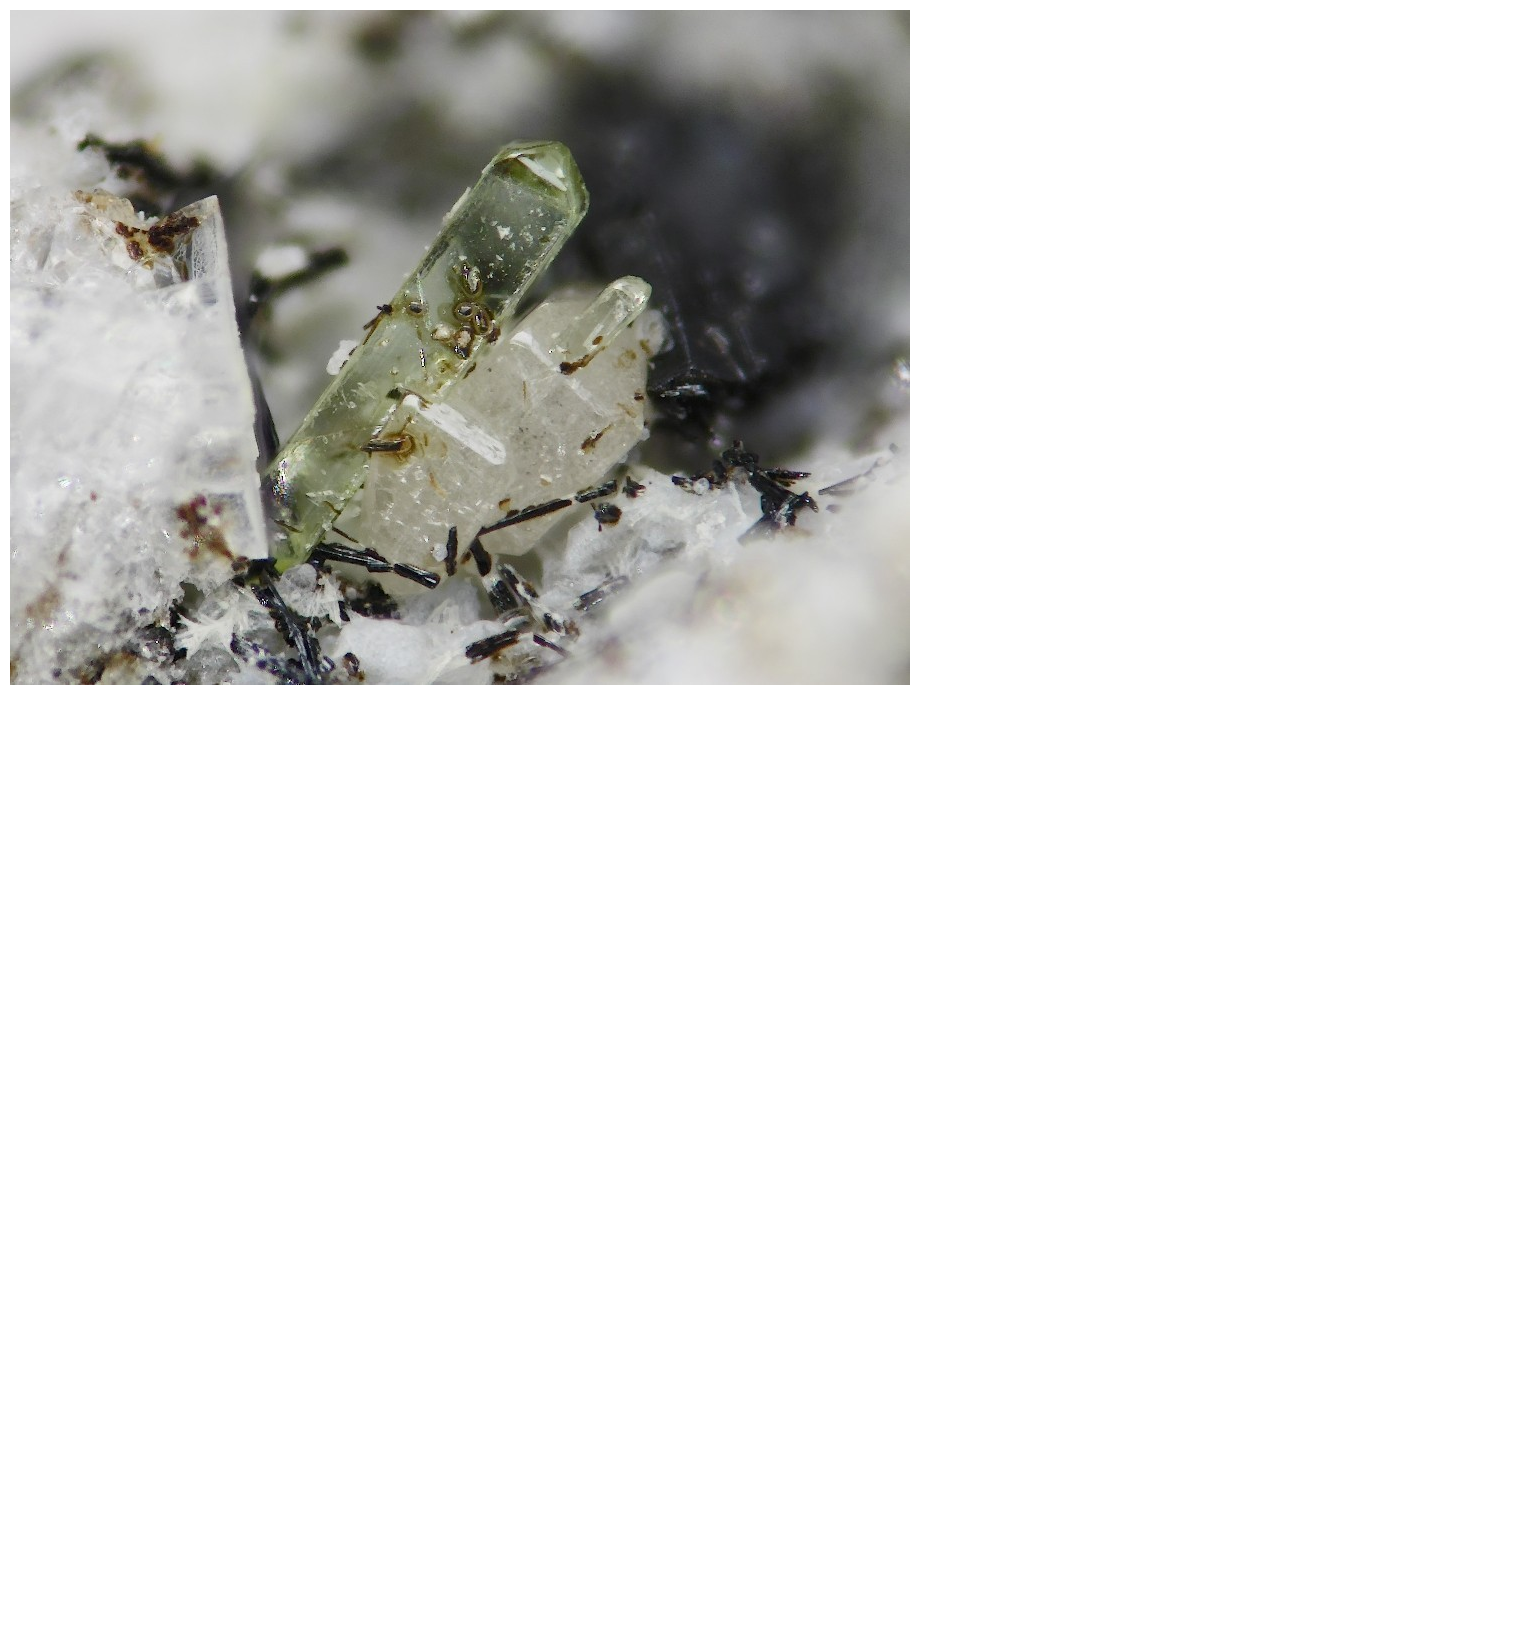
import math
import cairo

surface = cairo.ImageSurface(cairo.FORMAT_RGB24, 1529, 1648)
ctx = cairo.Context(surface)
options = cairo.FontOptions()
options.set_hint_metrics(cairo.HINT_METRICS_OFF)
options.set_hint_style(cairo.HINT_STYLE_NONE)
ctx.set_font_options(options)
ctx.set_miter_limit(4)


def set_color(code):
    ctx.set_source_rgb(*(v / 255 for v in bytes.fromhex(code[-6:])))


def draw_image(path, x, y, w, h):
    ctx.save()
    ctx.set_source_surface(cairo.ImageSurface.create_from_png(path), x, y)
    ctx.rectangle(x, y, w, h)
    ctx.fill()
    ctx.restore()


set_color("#ffffff")
ctx.paint()
draw_image("assets/img1.png", 10, 10, 900, 675)
surface.write_to_png("output.png")
